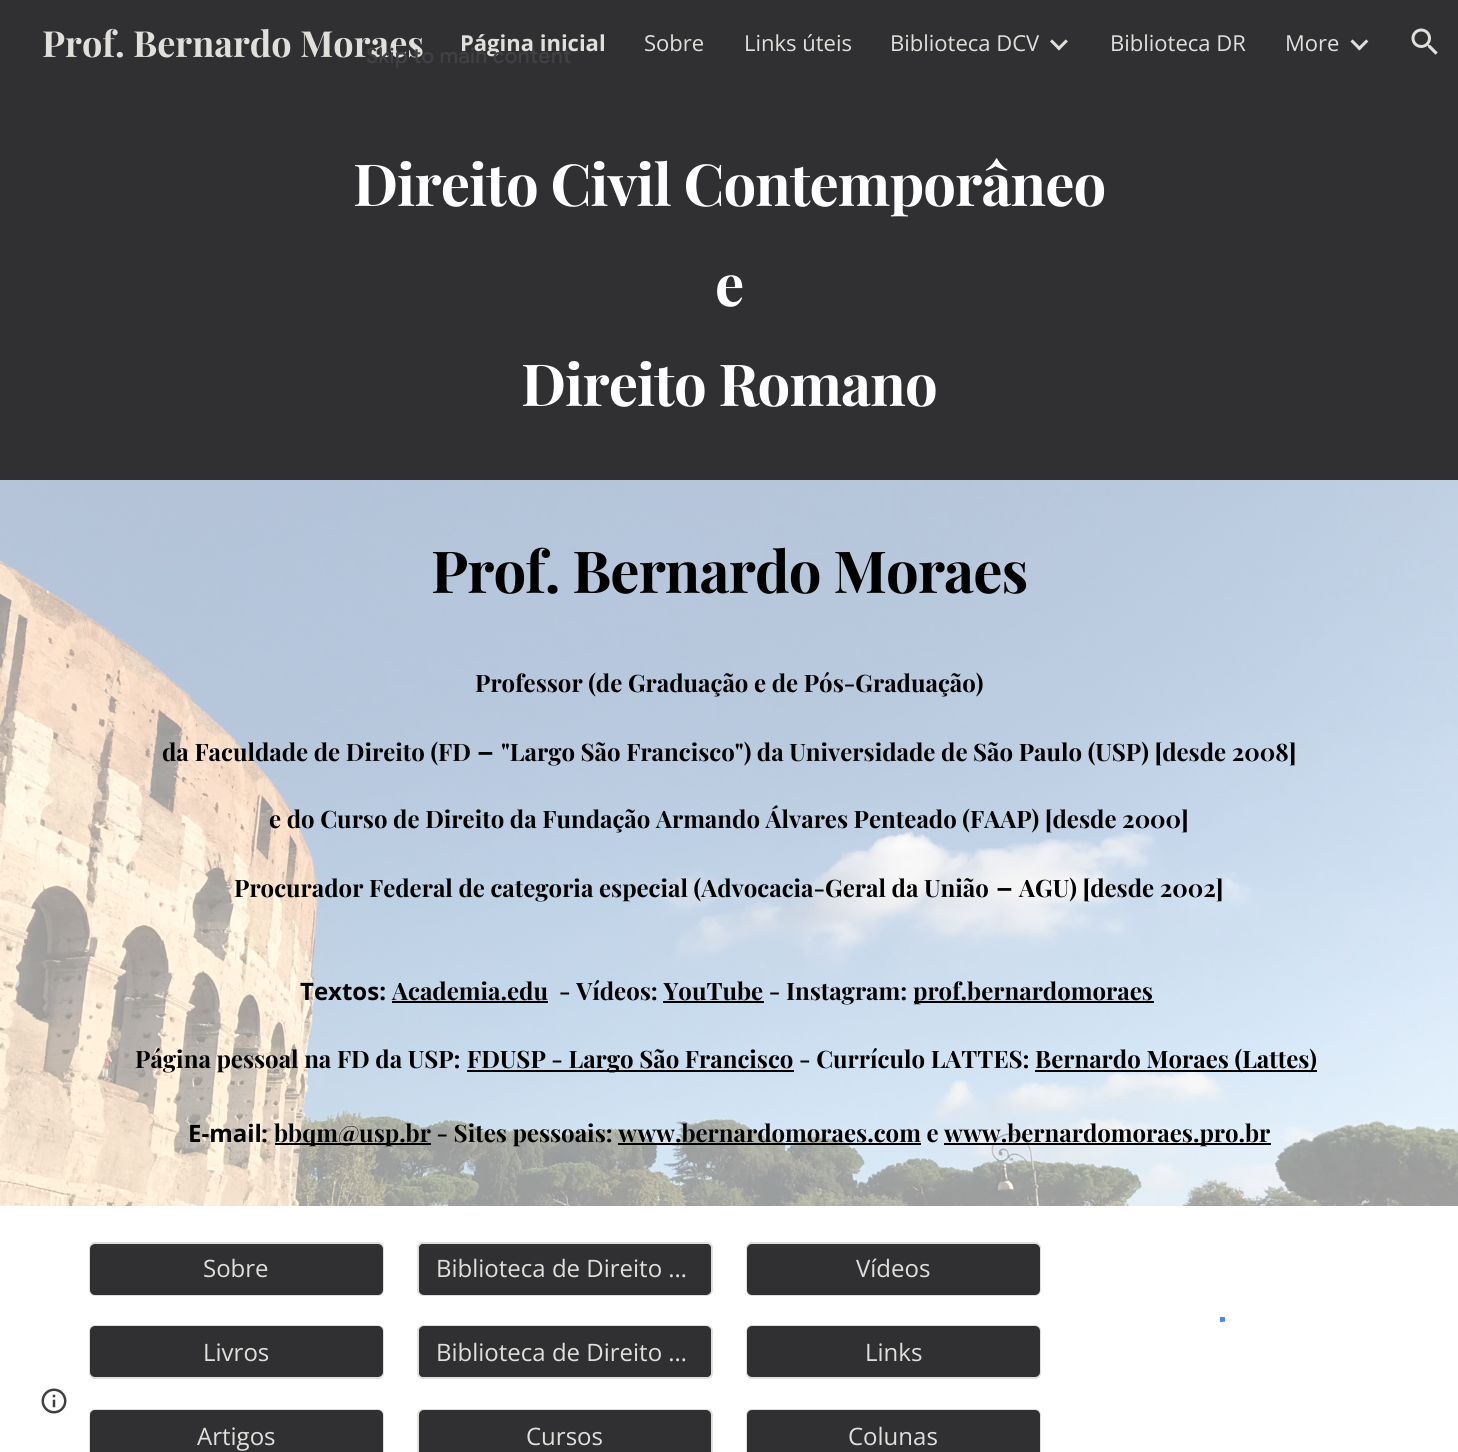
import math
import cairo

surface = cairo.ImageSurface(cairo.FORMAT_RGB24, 1458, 1452)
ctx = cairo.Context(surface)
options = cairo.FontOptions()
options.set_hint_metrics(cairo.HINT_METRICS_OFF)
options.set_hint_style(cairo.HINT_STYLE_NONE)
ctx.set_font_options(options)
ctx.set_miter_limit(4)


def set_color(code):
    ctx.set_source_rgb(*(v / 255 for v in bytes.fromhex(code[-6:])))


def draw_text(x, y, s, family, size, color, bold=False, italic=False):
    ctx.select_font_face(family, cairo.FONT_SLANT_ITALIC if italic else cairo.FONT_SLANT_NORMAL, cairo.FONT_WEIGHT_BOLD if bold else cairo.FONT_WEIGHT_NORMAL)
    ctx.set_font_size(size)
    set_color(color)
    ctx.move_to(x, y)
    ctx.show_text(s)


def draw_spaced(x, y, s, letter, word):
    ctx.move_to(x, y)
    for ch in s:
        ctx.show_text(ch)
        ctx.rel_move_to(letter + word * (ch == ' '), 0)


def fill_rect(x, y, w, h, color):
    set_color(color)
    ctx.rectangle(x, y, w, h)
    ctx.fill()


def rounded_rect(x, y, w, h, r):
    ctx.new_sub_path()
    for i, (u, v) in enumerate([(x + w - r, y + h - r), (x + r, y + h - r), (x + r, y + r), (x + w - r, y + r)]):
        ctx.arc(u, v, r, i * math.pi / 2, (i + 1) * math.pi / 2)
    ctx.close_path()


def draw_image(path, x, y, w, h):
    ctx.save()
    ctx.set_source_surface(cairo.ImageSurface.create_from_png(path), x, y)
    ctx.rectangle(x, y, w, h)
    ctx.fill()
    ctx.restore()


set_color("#ffffff")
ctx.paint()
fill_rect(0, 0, 1458, 480, "#303033")
draw_text(42, 57, "Prof. Bernardo Moraes", "Playfair Display", 36, "#e1dfdb", bold=True)
draw_text(460, 51, "Página inicial", "Open Sans", 22, "#e1dfdb", bold=True)
draw_text(644, 51, "Sobre", "Open Sans", 22, "#e1dfdb")
draw_text(744, 51, "Links úteis", "Open Sans", 22, "#e1dfdb")
draw_text(890, 51, "Biblioteca DCV", "Open Sans", 22, "#e1dfdb")
draw_image("assets/img1.png", 1050, 39, 18, 12)
draw_text(1110, 51, "Biblioteca DR", "Open Sans", 22, "#e1dfdb")
draw_text(1285, 51, "More", "Open Sans", 22, "#e1dfdb")
draw_image("assets/img2.png", 1350, 39, 19, 12)
draw_image("assets/img3.png", 1411, 28, 27, 27)
draw_image("assets/img4.png", 41, 1388, 26, 26)
ctx.select_font_face("Playfair Display", cairo.FONT_SLANT_NORMAL, cairo.FONT_WEIGHT_BOLD)
ctx.set_font_size(58)
set_color("#ffffff")
draw_spaced(353, 206, "Direito Civil Contemporâneo", -0.9, 0)
draw_spaced(715, 306, "e", -0.9, 0)
draw_spaced(521, 406, "Direito Romano", -0.9, 0)
draw_image("assets/img5.png", 0, 480, 1458, 726)
set_color("#000000")
draw_spaced(431, 593, "Prof. Bernardo Moraes", -0.9, 0)
draw_text(475, 692, "Professor (de Graduação e de Pós-Graduação)", "Playfair Display", 24, "#000000", bold=True)
draw_text(162, 761, "da Faculdade de Direito (FD", "Playfair Display", 24, "#000000", bold=True)
draw_text(477, 761, "–", "Playfair Display", 28, "#000000", bold=True)
draw_text(501, 761, "\"Largo São Francisco\") da Universidade de São Paulo (USP) [desde 2008]", "Playfair Display", 24, "#000000", bold=True)
draw_text(269, 828, "e do Curso de Direito da Fundação Armando Álvares Penteado (FAAP) [desde 2000]", "Playfair Display", 24, "#000000", bold=True)
draw_text(234, 897, "Procurador Federal de categoria especial (Advocacia-Geral da União", "Playfair Display", 24, "#000000", bold=True)
draw_text(996, 897, "–", "Playfair Display", 28, "#000000", bold=True)
draw_text(1019, 897, "AGU) [desde 2002]", "Playfair Display", 24, "#000000", bold=True)
draw_text(300, 1000, "Textos:", "Open Sans", 24, "#000000", bold=True)
draw_text(392, 1000, "Academia.edu", "Playfair Display", 24, "#000000", bold=True)
fill_rect(392, 1001, 156, 2, "#000000")
draw_text(559, 1000, "- Vídeos: YouTube - Instagram:", "Playfair Display", 24, "#000000", bold=True)
fill_rect(914, 1001, 240, 2, "#000000")
draw_text(913, 1000, "prof.bernardomoraes", "Playfair Display", 24, "#000000", bold=True)
fill_rect(663, 1001, 101, 2, "#000000")
draw_text(135, 1068, "Página pessoal na FD da USP:", "Playfair Display", 24, "#000000", bold=True)
fill_rect(467, 1070, 327, 2, "#000000")
draw_text(467, 1068, "FDUSP - Largo São Francisco - Currículo LATTES:", "Playfair Display", 24, "#000000", bold=True)
fill_rect(1035, 1070, 282, 2, "#000000")
draw_text(1035, 1068, "Bernardo Moraes (Lattes)", "Playfair Display", 24, "#000000", bold=True)
draw_text(188, 1142, "E-mail", "Open Sans", 24, "#000000", bold=True)
draw_text(261, 1142, ":", "Playfair Display", 24, "#000000", bold=True)
fill_rect(275, 1143, 156, 2, "#000000")
draw_text(274, 1142, "bbqm@usp.br - Sites pessoais: www.bernardomoraes.com e", "Playfair Display", 24, "#000000", bold=True)
fill_rect(944, 1143, 327, 2, "#000000")
draw_text(944, 1142, "www.bernardomoraes.pro.br", "Playfair Display", 24, "#000000", bold=True)
fill_rect(618, 1143, 303, 2, "#000000")
rounded_rect(90, 1243, 293, 52, 5)
set_color("#e1dfdb")
ctx.stroke()
set_color("#303033")
rounded_rect(90, 1244, 293, 51, 5)
ctx.fill()
draw_text(203, 1277, "Sobre", "Open Sans", 24, "#e1dfdb")
rounded_rect(90, 1326, 293, 52, 5)
ctx.stroke()
set_color("#303033")
rounded_rect(90, 1326, 293, 51, 5)
ctx.fill()
draw_text(203, 1361, "Livros", "Open Sans", 24, "#e1dfdb")
rounded_rect(90, 1410, 293, 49, 5)
ctx.stroke()
set_color("#303033")
rounded_rect(90, 1410, 293, 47, 5)
ctx.fill()
draw_text(197, 1445, "Artigos", "Open Sans", 24, "#e1dfdb")
set_color("#303033")
rounded_rect(418, 1243, 294, 52, 5)
ctx.fill_preserve()
set_color("#e1dfdb")
ctx.stroke()
set_color("#303033")
rounded_rect(419, 1244, 292, 51, 5)
ctx.fill()
draw_text(436, 1277, "Biblioteca de Direito …", "Open Sans", 24, "#e1dfdb")
set_color("#303033")
rounded_rect(418, 1326, 294, 52, 5)
ctx.fill_preserve()
set_color("#e1dfdb")
ctx.stroke()
set_color("#303033")
rounded_rect(419, 1326, 292, 51, 5)
ctx.fill()
draw_text(436, 1361, "Biblioteca de Direito …", "Open Sans", 24, "#e1dfdb")
rounded_rect(418, 1410, 294, 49, 5)
ctx.stroke()
set_color("#303033")
rounded_rect(419, 1410, 292, 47, 5)
ctx.fill()
draw_text(526, 1445, "Cursos", "Open Sans", 24, "#e1dfdb")
rounded_rect(747, 1243, 293, 52, 5)
ctx.stroke()
set_color("#303033")
rounded_rect(747, 1244, 293, 51, 5)
ctx.fill()
draw_text(856, 1277, "Vídeos", "Open Sans", 24, "#e1dfdb")
rounded_rect(747, 1326, 293, 52, 5)
ctx.stroke()
set_color("#303033")
rounded_rect(747, 1326, 293, 51, 5)
ctx.fill()
draw_text(865, 1361, "Links", "Open Sans", 24, "#e1dfdb")
rounded_rect(747, 1410, 293, 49, 5)
ctx.stroke()
set_color("#303033")
rounded_rect(747, 1410, 293, 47, 5)
ctx.fill()
draw_text(848, 1445, "Colunas", "Open Sans", 24, "#e1dfdb")
ctx.save()
ctx.rectangle(1202, 1317, 21, 42)
ctx.clip()
ctx.new_path()
ctx.move_to(1220, 1319.5)
ctx.curve_to(1224, 1319.5, 1227.5, 1320, 1231, 1322)
ctx.curve_to(1247, 1331, 1241.5, 1355.5, 1223.5, 1357)
set_color("#4486f4")
ctx.set_line_width(4.5)
ctx.stroke()
ctx.restore()
ctx.save()
ctx.rectangle(1220, 1317, 5, 42)
ctx.clip()
ctx.new_path()
ctx.move_to(1209, 1351.5)
ctx.curve_to(1204.5, 1347, 1203, 1340.5, 1204, 1334.5)
ctx.curve_to(1205, 1329.5, 1208, 1325, 1212, 1322.5)
ctx.curve_to(1230, 1310, 1249.5, 1335.5, 1234.5, 1351.5)
set_color("#4486f4")
ctx.set_line_width(4.5)
ctx.stroke()
ctx.restore()
ctx.save()
ctx.rectangle(1223, 1317, 21, 42)
ctx.clip()
ctx.new_path()
ctx.move_to(1220, 1357)
ctx.curve_to(1202, 1355.5, 1196.5, 1331, 1212.5, 1322)
ctx.curve_to(1216, 1320, 1219.5, 1319.5, 1223.5, 1319.5)
set_color("#4486f4")
ctx.set_line_width(4.5)
ctx.stroke()
ctx.restore()
ctx.select_font_face("Google Sans Medium")
ctx.set_font_size(21)
set_color("#414143")
draw_spaced(366, 63, "Skip to main content", 0.25, 0)
surface.write_to_png("output.png")
